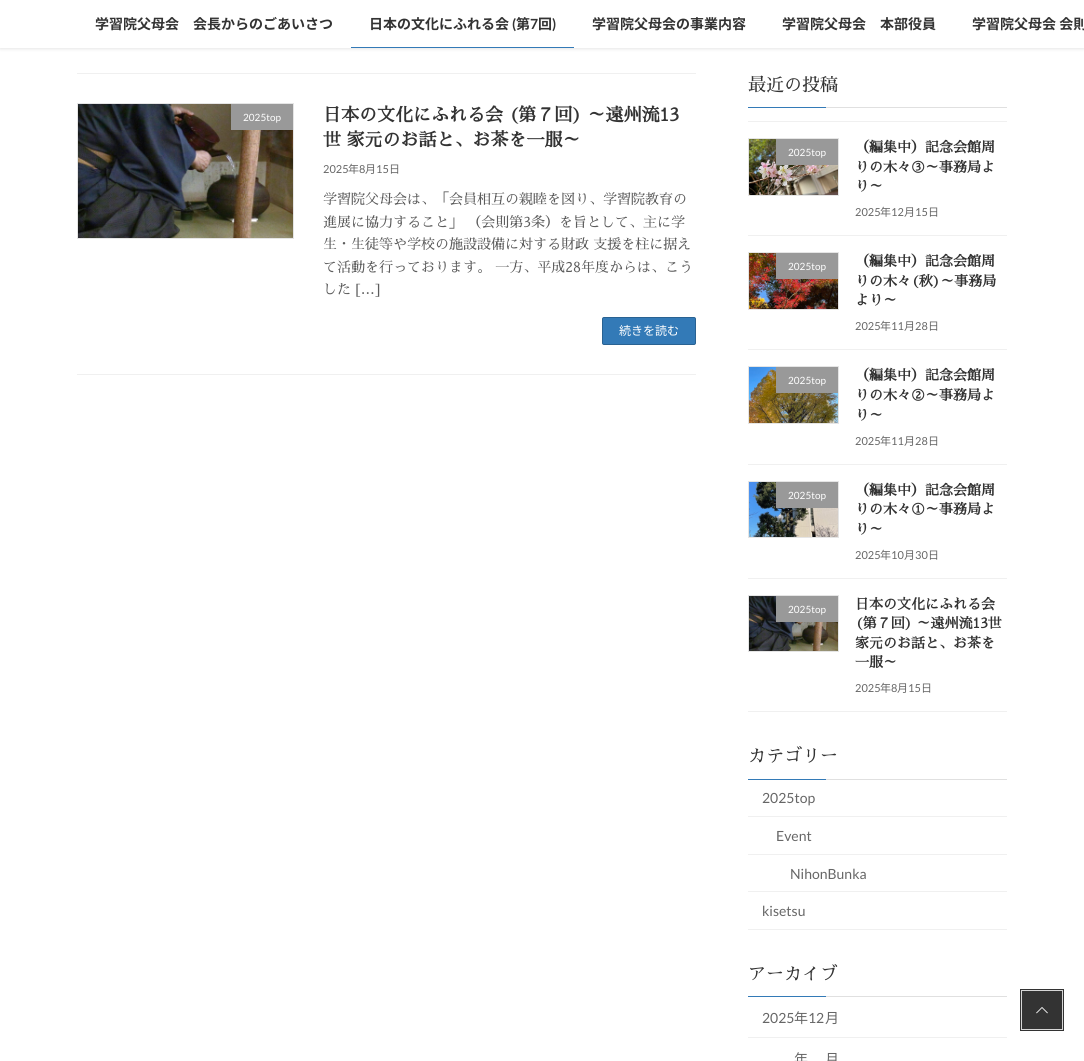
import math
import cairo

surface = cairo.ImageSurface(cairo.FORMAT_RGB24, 1084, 1061)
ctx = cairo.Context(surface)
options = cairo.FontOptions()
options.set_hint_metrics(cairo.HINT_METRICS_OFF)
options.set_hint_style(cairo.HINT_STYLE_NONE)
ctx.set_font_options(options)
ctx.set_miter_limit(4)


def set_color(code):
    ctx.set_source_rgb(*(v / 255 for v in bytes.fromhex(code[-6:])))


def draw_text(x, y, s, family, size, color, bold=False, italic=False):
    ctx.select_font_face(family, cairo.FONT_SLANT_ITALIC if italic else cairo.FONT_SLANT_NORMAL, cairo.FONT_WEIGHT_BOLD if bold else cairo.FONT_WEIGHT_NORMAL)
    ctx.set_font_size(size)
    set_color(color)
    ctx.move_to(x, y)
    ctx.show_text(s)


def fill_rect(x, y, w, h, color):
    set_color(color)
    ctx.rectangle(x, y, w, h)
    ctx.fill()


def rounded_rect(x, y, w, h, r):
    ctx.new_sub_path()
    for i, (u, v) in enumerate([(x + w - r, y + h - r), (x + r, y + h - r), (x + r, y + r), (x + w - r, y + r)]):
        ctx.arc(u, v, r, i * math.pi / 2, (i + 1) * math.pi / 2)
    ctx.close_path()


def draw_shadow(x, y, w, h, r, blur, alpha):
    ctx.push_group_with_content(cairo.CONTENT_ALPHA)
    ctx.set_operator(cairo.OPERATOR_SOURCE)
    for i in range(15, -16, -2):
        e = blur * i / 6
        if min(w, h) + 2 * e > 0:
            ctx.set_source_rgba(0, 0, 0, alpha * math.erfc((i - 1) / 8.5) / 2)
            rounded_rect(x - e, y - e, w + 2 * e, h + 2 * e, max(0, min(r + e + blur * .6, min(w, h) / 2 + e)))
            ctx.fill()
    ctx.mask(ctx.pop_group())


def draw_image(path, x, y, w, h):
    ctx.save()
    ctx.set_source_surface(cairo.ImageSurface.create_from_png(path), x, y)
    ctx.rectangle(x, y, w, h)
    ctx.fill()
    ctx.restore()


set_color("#ffffff")
ctx.paint()
set_color("#000000")
draw_shadow(0, 1, 1084, 48, 0, 1.5, 0.1)
fill_rect(0, 0, 1084, 48, "#ffffff")
draw_text(95, 29, "学習院父母会　会長からのごあいさつ", "Noto Sans JP", 14, "#333333", bold=True)
draw_text(369, 29, "日本の文化にふれる会", "Noto Sans JP", 14, "#333333", bold=True)
draw_text(512, 29, "(", "Lato", 14, "#333333", bold=True)
draw_text(516, 29, "第", "Noto Sans JP", 14, "#333333", bold=True)
draw_text(530, 29, "7", "Lato", 14, "#333333", bold=True)
draw_text(538, 29, "回", "Noto Sans JP", 14, "#333333", bold=True)
draw_text(552, 29, ")", "Lato", 14, "#333333", bold=True)
fill_rect(351, 47, 223, 1, "#337ab7")
draw_text(592, 29, "学習院父母会の事業内容", "Noto Sans JP", 14, "#333333", bold=True)
draw_text(782, 29, "学習院父母会　本部役員", "Noto Sans JP", 14, "#333333", bold=True)
draw_text(972, 29, "学習院父母会 会則", "Noto Sans JP", 14, "#333333", bold=True)
fill_rect(77, 73, 619, 1, "#f0f0f0")
fill_rect(77, 374, 619, 1, "#f0f0f0")
draw_image("assets/img1.png", 78, 104, 215, 134)
ctx.rectangle(77.5, 103.5, 216, 135)
set_color("#e5e5e5")
ctx.set_line_width(1)
ctx.stroke()
fill_rect(231, 104, 62, 26, "#999999")
draw_text(243, 121, "2025top", "Lato", 10, "#ffffff")
draw_text(323, 121, "日本の文化にふれる会 (第７回) ～遠州流13", "Sawarabi Mincho", 18, "#333333", bold=True)
draw_text(323, 146, "世 家元のお話と、お茶を一服～", "Sawarabi Mincho", 18, "#333333", bold=True)
draw_text(323, 173, "2025", "Lato", 11, "#666666")
draw_text(348, 173, "年", "Noto Sans JP", 11, "#666666")
draw_text(359, 173, "8", "Lato", 11, "#666666")
draw_text(365, 173, "月", "Noto Sans JP", 11, "#666666")
draw_text(376, 173, "15", "Lato", 11, "#666666")
draw_text(389, 173, "日", "Noto Sans JP", 11, "#666666")
draw_text(323, 204, "学習院父母会は、「会員相互の親睦を図り、学習院教育の", "Sawarabi Mincho", 14, "#5c5c5c")
draw_text(323, 227, "進展に協力すること」 （会則第3条）を旨として、主に学", "Sawarabi Mincho", 14, "#5c5c5c")
draw_text(323, 249, "生・生徒等や学校の施設設備に対する財政 支援を柱に据え", "Sawarabi Mincho", 14, "#5c5c5c")
draw_text(323, 272, "て活動を行っております。 一方、平成28年度からは、こう", "Sawarabi Mincho", 14, "#5c5c5c")
draw_text(323, 294, "した […]", "Sawarabi Mincho", 14, "#5c5c5c")
set_color("#337ab7")
rounded_rect(602.5, 317.5, 93, 27, 1.5)
ctx.fill_preserve()
set_color("#296292")
ctx.stroke()
draw_text(619, 335, "続きを読む", "Noto Sans JP", 12, "#ffffff")
fill_rect(826, 107, 181, 1, "#e0e0e0")
draw_text(748, 91, "最近の投稿", "Sawarabi Mincho", 18, "#333333")
fill_rect(748, 107, 78, 1, "#337ab7")
fill_rect(748, 121, 259, 1, "#f0f0f0")
fill_rect(748, 235, 259, 1, "#f0f0f0")
draw_image("assets/img2.png", 749, 139, 89, 56)
ctx.rectangle(748.5, 138.5, 90, 57)
set_color("#e5e5e5")
ctx.stroke()
fill_rect(776, 139, 62, 26, "#999999")
draw_text(788, 156, "2025top", "Lato", 10, "#ffffff")
draw_text(855, 152, "（編集中）記念会館周", "Sawarabi Mincho", 14, "#333333", bold=True)
draw_text(855, 172, "りの木々③～事務局よ", "Sawarabi Mincho", 14, "#333333", bold=True)
draw_text(855, 191, "り～", "Sawarabi Mincho", 14, "#333333", bold=True)
draw_text(855, 216, "2025", "Lato", 11, "#666666")
draw_text(880, 216, "年", "Noto Sans JP", 11, "#666666")
draw_text(891, 216, "12", "Lato", 11, "#666666")
draw_text(904, 216, "月", "Noto Sans JP", 11, "#666666")
draw_text(915, 216, "15", "Lato", 11, "#666666")
draw_text(928, 216, "日", "Noto Sans JP", 11, "#666666")
fill_rect(748, 349, 259, 1, "#f0f0f0")
draw_image("assets/img3.png", 749, 253, 89, 56)
ctx.rectangle(748.5, 252.5, 90, 57)
set_color("#e5e5e5")
ctx.stroke()
fill_rect(776, 253, 62, 26, "#999999")
draw_text(788, 270, "2025top", "Lato", 10, "#ffffff")
draw_text(855, 266, "（編集中）記念会館周", "Sawarabi Mincho", 14, "#333333", bold=True)
draw_text(855, 286, "りの木々(秋)～事務局", "Sawarabi Mincho", 14, "#333333", bold=True)
draw_text(855, 305, "より～", "Sawarabi Mincho", 14, "#333333", bold=True)
draw_text(855, 330, "2025", "Lato", 11, "#666666")
draw_text(880, 330, "年", "Noto Sans JP", 11, "#666666")
draw_text(891, 330, "11", "Lato", 11, "#666666")
draw_text(904, 330, "月", "Noto Sans JP", 11, "#666666")
draw_text(915, 330, "28", "Lato", 11, "#666666")
draw_text(928, 330, "日", "Noto Sans JP", 11, "#666666")
fill_rect(748, 464, 259, 1, "#f0f0f0")
draw_image("assets/img4.png", 749, 367, 89, 56)
ctx.rectangle(748.5, 366.5, 90, 57)
set_color("#e5e5e5")
ctx.stroke()
fill_rect(776, 367, 62, 26, "#999999")
draw_text(788, 384, "2025top", "Lato", 10, "#ffffff")
draw_text(855, 380, "（編集中）記念会館周", "Sawarabi Mincho", 14, "#333333", bold=True)
draw_text(855, 400, "りの木々②～事務局よ", "Sawarabi Mincho", 14, "#333333", bold=True)
draw_text(855, 420, "り～", "Sawarabi Mincho", 14, "#333333", bold=True)
draw_text(855, 445, "2025", "Lato", 11, "#666666")
draw_text(880, 445, "年", "Noto Sans JP", 11, "#666666")
draw_text(891, 445, "11", "Lato", 11, "#666666")
draw_text(904, 445, "月", "Noto Sans JP", 11, "#666666")
draw_text(915, 445, "28", "Lato", 11, "#666666")
draw_text(928, 445, "日", "Noto Sans JP", 11, "#666666")
fill_rect(748, 578, 259, 1, "#f0f0f0")
draw_image("assets/img5.png", 749, 482, 89, 55)
ctx.rectangle(748.5, 481.5, 90, 56)
set_color("#e5e5e5")
ctx.stroke()
fill_rect(776, 482, 62, 26, "#999999")
draw_text(788, 499, "2025top", "Lato", 10, "#ffffff")
draw_text(855, 495, "（編集中）記念会館周", "Sawarabi Mincho", 14, "#333333", bold=True)
draw_text(855, 514, "りの木々①～事務局よ", "Sawarabi Mincho", 14, "#333333", bold=True)
draw_text(855, 534, "り～", "Sawarabi Mincho", 14, "#333333", bold=True)
draw_text(855, 559, "2025", "Lato", 11, "#666666")
draw_text(880, 559, "年", "Noto Sans JP", 11, "#666666")
draw_text(891, 559, "10", "Lato", 11, "#666666")
draw_text(904, 559, "月", "Noto Sans JP", 11, "#666666")
draw_text(915, 559, "30", "Lato", 11, "#666666")
draw_text(928, 559, "日", "Noto Sans JP", 11, "#666666")
fill_rect(748, 711, 259, 1, "#f0f0f0")
draw_image("assets/img6.png", 749, 596, 89, 55)
ctx.rectangle(748.5, 595.5, 90, 56)
set_color("#e5e5e5")
ctx.stroke()
fill_rect(776, 596, 62, 26, "#999999")
draw_text(788, 613, "2025top", "Lato", 10, "#ffffff")
draw_text(855, 609, "日本の文化にふれる会", "Sawarabi Mincho", 14, "#333333", bold=True)
draw_text(855, 628, "(第７回) ～遠州流13世", "Sawarabi Mincho", 14, "#333333", bold=True)
draw_text(855, 648, "家元のお話と、お茶を", "Sawarabi Mincho", 14, "#333333", bold=True)
draw_text(855, 667, "一服～", "Sawarabi Mincho", 14, "#333333", bold=True)
draw_text(855, 692, "2025", "Lato", 11, "#666666")
draw_text(880, 692, "年", "Noto Sans JP", 11, "#666666")
draw_text(891, 692, "8", "Lato", 11, "#666666")
draw_text(897, 692, "月", "Noto Sans JP", 11, "#666666")
draw_text(908, 692, "15", "Lato", 11, "#666666")
draw_text(921, 692, "日", "Noto Sans JP", 11, "#666666")
fill_rect(826, 779, 181, 1, "#e0e0e0")
draw_text(748, 762, "カテゴリー", "Sawarabi Mincho", 18, "#333333")
fill_rect(748, 779, 78, 1, "#337ab7")
fill_rect(748, 816, 259, 1, "#f0f0f0")
draw_text(762, 803, "2025top", "Lato", 14, "#666666")
fill_rect(748, 854, 259, 1, "#f0f0f0")
draw_text(776, 841, "Event", "Lato", 14, "#666666")
fill_rect(748, 891, 259, 1, "#f0f0f0")
draw_text(790, 879, "NihonBunka", "Lato", 14, "#666666")
fill_rect(748, 929, 259, 1, "#f0f0f0")
draw_text(762, 916, "kisetsu", "Lato", 14, "#666666")
fill_rect(826, 996, 181, 1, "#e0e0e0")
draw_text(748, 980, "アーカイブ", "Sawarabi Mincho", 18, "#333333")
fill_rect(748, 996, 78, 1, "#337ab7")
fill_rect(748, 1037, 259, 1, "#f0f0f0")
draw_text(762, 1023, "2025", "Lato", 14, "#666666")
draw_text(794, 1023, "年", "Noto Sans JP", 14, "#666666")
draw_text(808, 1023, "12", "Lato", 14, "#666666")
draw_text(825, 1023, "月", "Noto Sans JP", 14, "#666666")
draw_text(794, 1064, "年", "Noto Sans JP", 14, "#666666")
draw_text(825, 1064, "月", "Noto Sans JP", 14, "#666666")
ctx.rectangle(1021, 990, 42, 40)
set_color("#333333")
ctx.set_line_width(2)
ctx.stroke()
ctx.rectangle(1021.5, 990.5, 41, 39)
set_color("#d6d6d6")
ctx.set_line_width(1)
ctx.stroke()
fill_rect(1022, 991, 40, 38, "#333333")
draw_image("assets/img7.png", 1036, 1007, 12, 7)
surface.write_to_png("output.png")
